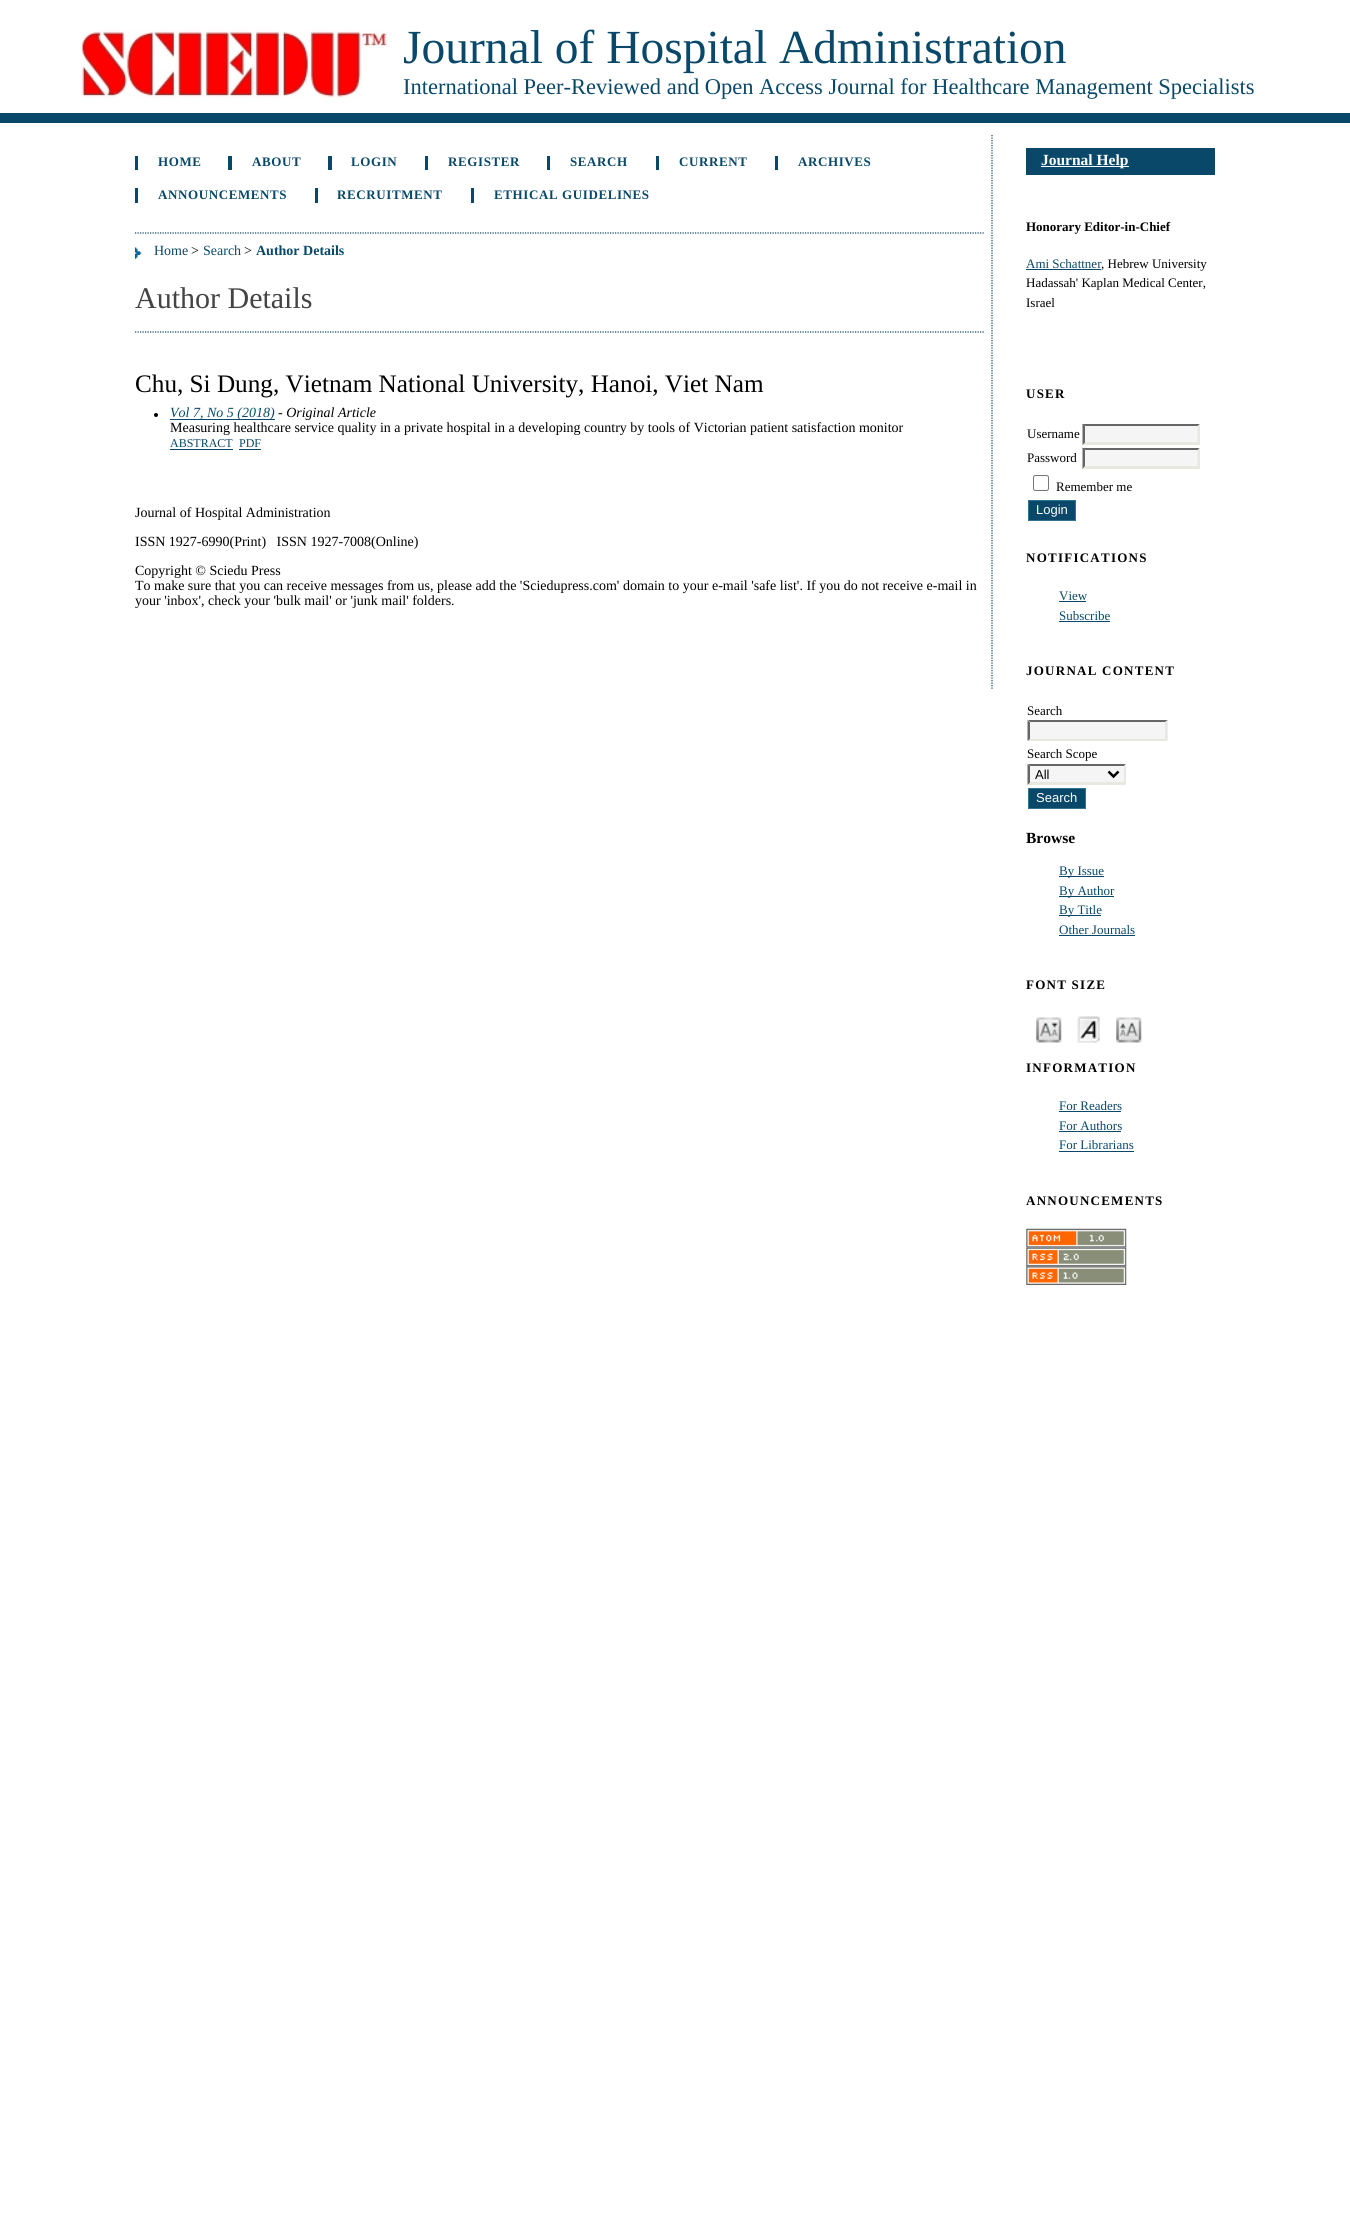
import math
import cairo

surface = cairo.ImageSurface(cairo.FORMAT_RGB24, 1350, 2239)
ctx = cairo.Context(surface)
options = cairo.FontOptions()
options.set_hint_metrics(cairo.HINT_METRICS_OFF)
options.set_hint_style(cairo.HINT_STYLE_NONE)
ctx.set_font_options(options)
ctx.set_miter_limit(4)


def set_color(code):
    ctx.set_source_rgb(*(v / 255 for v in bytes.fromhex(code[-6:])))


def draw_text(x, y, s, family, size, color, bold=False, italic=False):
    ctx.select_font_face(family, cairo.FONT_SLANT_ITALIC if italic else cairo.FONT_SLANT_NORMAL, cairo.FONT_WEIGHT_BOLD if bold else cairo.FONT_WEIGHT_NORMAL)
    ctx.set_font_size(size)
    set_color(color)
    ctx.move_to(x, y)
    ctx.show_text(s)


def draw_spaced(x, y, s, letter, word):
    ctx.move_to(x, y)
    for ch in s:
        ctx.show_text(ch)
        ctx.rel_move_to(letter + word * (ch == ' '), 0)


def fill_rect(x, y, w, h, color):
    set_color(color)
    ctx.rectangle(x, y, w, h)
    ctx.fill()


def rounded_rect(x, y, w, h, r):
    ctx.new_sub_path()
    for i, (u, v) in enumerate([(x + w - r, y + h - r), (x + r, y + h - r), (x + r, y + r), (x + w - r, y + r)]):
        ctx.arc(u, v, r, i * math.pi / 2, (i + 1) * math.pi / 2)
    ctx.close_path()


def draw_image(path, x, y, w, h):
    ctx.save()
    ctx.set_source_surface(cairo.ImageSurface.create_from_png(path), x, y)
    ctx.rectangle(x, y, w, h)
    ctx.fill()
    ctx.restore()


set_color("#ffffff")
ctx.paint()
fill_rect(0, 113, 1350, 10, "#094869")
draw_image("assets/img1.png", 81, 30, 306, 68)
draw_text(403, 63, "Journal of Hospital Administration", "Liberation Serif", 47.5, "#094869")
draw_text(403, 94, "International Peer-Reviewed and Open Access Journal for Healthcare Management Specialists", "Liberation Serif", 22.5, "#094869")
ctx.new_path()
ctx.move_to(992, 135)
ctx.line_to(992, 690)
ctx.set_line_width(1.2)
ctx.set_dash([1.25, 1.25])
ctx.stroke()
ctx.select_font_face("Liberation Serif", cairo.FONT_SLANT_NORMAL, cairo.FONT_WEIGHT_BOLD)
ctx.set_font_size(13)
draw_spaced(158, 166, "HOME", 0.6, 0)
fill_rect(135, 156, 3, 14, "#094869")
draw_spaced(252, 166, "ABOUT", 0.6, 0)
fill_rect(228, 156, 4, 14, "#094869")
draw_spaced(351, 166, "LOGIN", 0.6, 0)
fill_rect(328, 156, 4, 14, "#094869")
draw_spaced(448, 166, "REGISTER", 0.6, 0)
fill_rect(425, 156, 3, 14, "#094869")
draw_spaced(570, 166, "SEARCH", 0.6, 0)
fill_rect(547, 156, 3, 14, "#094869")
draw_spaced(679, 166, "CURRENT", 0.6, 0)
fill_rect(656, 156, 3, 14, "#094869")
draw_spaced(798, 166, "ARCHIVES", 0.6, 0)
fill_rect(775, 156, 3, 14, "#094869")
draw_spaced(158, 199, "ANNOUNCEMENTS", 0.6, 0)
fill_rect(135, 188, 3, 15, "#094869")
draw_spaced(337, 199, "RECRUITMENT", 0.6, 0)
fill_rect(315, 188, 3, 15, "#094869")
draw_spaced(494, 199, "ETHICAL GUIDELINES", 0.6, 0)
fill_rect(471, 188, 3, 15, "#094869")
draw_image("assets/img2.png", 135, 247, 7, 12)
ctx.new_path()
ctx.move_to(135, 233)
ctx.line_to(985, 233)
ctx.stroke()
draw_text(154, 255, "Home", "Liberation Serif", 14, "#094869")
draw_text(191, 255, ">", "Liberation Serif", 14, "#000000")
draw_text(203, 255, "Search", "Liberation Serif", 14, "#094869")
draw_text(244, 255, ">", "Liberation Serif", 14, "#000000")
draw_text(256, 255, "Author Details", "Liberation Serif", 14, "#094869", bold=True)
draw_text(135, 308, "Author Details", "Liberation Serif", 30, "#444444")
ctx.new_path()
ctx.move_to(135, 332)
ctx.line_to(985, 332)
set_color("#094869")
ctx.stroke()
draw_text(135, 392, "Chu, Si Dung, Vietnam National University, Hanoi, Viet Nam", "Liberation Serif", 25.2, "#000000")
ctx.new_path()
ctx.arc(156, 415, 2, 0, 2 * math.pi)
ctx.fill()
fill_rect(170, 419, 105, 1, "#094869")
draw_text(170, 417, "Vol 7, No 5 (2018)", "Liberation Serif", 14, "#094869", italic=True)
draw_text(278, 417, "- Original Article", "Liberation Serif", 14, "#000000", italic=True)
draw_text(170, 432, "Measuring healthcare service quality in a private hospital in a developing country by tools of Victorian patient satisfaction monitor", "Liberation Serif", 14, "#000000")
draw_text(170, 447, "ABSTRACT", "Liberation Serif", 12, "#094869")
fill_rect(170, 449, 63, 1, "#094869")
draw_text(239, 447, "PDF", "Liberation Serif", 12, "#094869")
fill_rect(239, 449, 22, 1, "#094869")
draw_text(135, 517, "Journal of Hospital Administration", "Liberation Serif", 14, "#000000")
draw_text(135, 546, "ISSN 1927-6990(Print)   ISSN 1927-7008(Online)", "Liberation Serif", 14, "#000000")
draw_text(135, 575, "Copyright © Sciedu Press", "Liberation Serif", 14, "#000000")
draw_text(135, 590, "To make sure that you can receive messages from us, please add the 'Sciedupress.com' domain to your e-mail 'safe list'. If you do not receive e-mail in", "Liberation Serif", 14, "#000000")
draw_text(135, 605, "your 'inbox', check your 'bulk mail' or 'junk mail' folders.", "Liberation Serif", 14, "#000000")
fill_rect(1026, 148, 189, 27, "#094869")
fill_rect(1041, 166, 88, 1, "#ffffff")
draw_text(1041, 165, "Journal Help", "Liberation Serif", 15.5, "#ffffff", bold=True)
draw_text(1026, 231, "Honorary Editor-in-Chief", "Liberation Serif", 13, "#000000", bold=True)
draw_text(1026, 268, "Ami Schattner", "Liberation Serif", 13, "#094869")
fill_rect(1026, 269, 75, 1, "#094869")
draw_text(1101, 268, ", Hebrew University", "Liberation Serif", 13, "#000000")
draw_text(1026, 287, "Hadassah' Kaplan Medical Center,", "Liberation Serif", 13, "#000000")
draw_text(1026, 307, "Israel", "Liberation Serif", 13, "#000000")
ctx.select_font_face("Liberation Serif", cairo.FONT_SLANT_NORMAL, cairo.FONT_WEIGHT_BOLD)
draw_spaced(1026, 398, "USER", 1.25, 0)
draw_text(1027, 438, "Username", "Liberation Serif", 13, "#000000")
fill_rect(1083, 424, 117, 21, "#f5f5f5")
set_color("#666666")
ctx.new_path()
ctx.move_to(1082, 424)
ctx.line_to(1200, 424)
ctx.line_to(1198, 426)
ctx.line_to(1085, 426)
ctx.close_path()
ctx.fill()
set_color("#e8e8e1")
ctx.new_path()
ctx.move_to(1200, 424)
ctx.line_to(1200, 445)
ctx.line_to(1197.5, 442.5)
ctx.line_to(1197.5, 426)
ctx.close_path()
ctx.fill()
ctx.new_path()
ctx.move_to(1200, 445)
ctx.line_to(1082, 445)
ctx.line_to(1085, 442)
ctx.line_to(1198, 442)
ctx.close_path()
ctx.fill()
set_color("#666666")
ctx.new_path()
ctx.move_to(1082.5, 445)
ctx.line_to(1082.5, 424)
ctx.line_to(1085, 426)
ctx.line_to(1085, 442.5)
ctx.close_path()
ctx.fill()
draw_text(1027, 462, "Password", "Liberation Serif", 13, "#000000")
fill_rect(1083, 448, 117, 21, "#f5f5f5")
set_color("#666666")
ctx.new_path()
ctx.move_to(1082, 448)
ctx.line_to(1200, 448)
ctx.line_to(1198, 450)
ctx.line_to(1085, 450)
ctx.close_path()
ctx.fill()
set_color("#e8e8e1")
ctx.new_path()
ctx.move_to(1200, 447.5)
ctx.line_to(1200, 469)
ctx.line_to(1197.5, 466)
ctx.line_to(1197.5, 450)
ctx.close_path()
ctx.fill()
ctx.new_path()
ctx.move_to(1200, 469)
ctx.line_to(1082, 469)
ctx.line_to(1085, 466)
ctx.line_to(1198, 466)
ctx.close_path()
ctx.fill()
set_color("#666666")
ctx.new_path()
ctx.move_to(1082.5, 469)
ctx.line_to(1082.5, 447.5)
ctx.line_to(1085, 450)
ctx.line_to(1085, 466)
ctx.close_path()
ctx.fill()
rounded_rect(1033.5, 475.5, 15, 15, 2)
set_color("#767676")
ctx.set_line_width(1)
ctx.set_dash([])
ctx.stroke()
draw_text(1056, 491, "Remember me", "Liberation Serif", 13, "#000000")
set_color("#094869")
ctx.rectangle(1028.5, 500.5, 47, 20)
ctx.fill_preserve()
set_color("#327293")
ctx.stroke()
draw_text(1036, 514, "Login", "Liberation Sans", 13, "#ffffff")
ctx.select_font_face("Liberation Serif", cairo.FONT_SLANT_NORMAL, cairo.FONT_WEIGHT_BOLD)
set_color("#000000")
draw_spaced(1026, 562, "NOTIFICATIONS", 1.25, 0)
draw_text(1059, 600, "View", "Liberation Serif", 13, "#094869")
fill_rect(1059, 601, 27, 1, "#094869")
draw_text(1059, 620, "Subscribe", "Liberation Serif", 13, "#094869")
fill_rect(1059, 621, 51, 1, "#094869")
ctx.select_font_face("Liberation Serif", cairo.FONT_SLANT_NORMAL, cairo.FONT_WEIGHT_BOLD)
set_color("#000000")
draw_spaced(1026, 675, "JOURNAL CONTENT", 1.25, 0)
draw_text(1027, 715, "Search", "Liberation Serif", 13, "#000000")
fill_rect(1028, 720, 140, 21, "#f5f5f5")
set_color("#666666")
ctx.new_path()
ctx.move_to(1028, 720)
ctx.line_to(1168, 720)
ctx.line_to(1165, 722)
ctx.line_to(1030, 722)
ctx.close_path()
ctx.fill()
set_color("#e8e8e1")
ctx.new_path()
ctx.move_to(1167.5, 720)
ctx.line_to(1167.5, 741)
ctx.line_to(1165, 739)
ctx.line_to(1165, 722.5)
ctx.close_path()
ctx.fill()
ctx.new_path()
ctx.move_to(1168, 741)
ctx.line_to(1028, 741)
ctx.line_to(1030, 739)
ctx.line_to(1165, 739)
ctx.close_path()
ctx.fill()
set_color("#666666")
ctx.new_path()
ctx.move_to(1027.5, 741)
ctx.line_to(1027.5, 720)
ctx.line_to(1030, 722.5)
ctx.line_to(1030, 739)
ctx.close_path()
ctx.fill()
draw_text(1027, 758, "Search Scope", "Liberation Serif", 13, "#000000")
fill_rect(1028, 764, 98, 21, "#f5f5f5")
set_color("#666666")
ctx.new_path()
ctx.move_to(1028, 764)
ctx.line_to(1126, 764)
ctx.line_to(1124, 766)
ctx.line_to(1030, 766)
ctx.close_path()
ctx.fill()
set_color("#e8e8e1")
ctx.new_path()
ctx.move_to(1126, 764)
ctx.line_to(1126, 785)
ctx.line_to(1124, 782.5)
ctx.line_to(1124, 766)
ctx.close_path()
ctx.fill()
ctx.new_path()
ctx.move_to(1126, 785)
ctx.line_to(1028, 785)
ctx.line_to(1030, 782)
ctx.line_to(1124, 782)
ctx.close_path()
ctx.fill()
set_color("#666666")
ctx.new_path()
ctx.move_to(1027.5, 785)
ctx.line_to(1027.5, 764)
ctx.line_to(1030, 766)
ctx.line_to(1030, 782.5)
ctx.close_path()
ctx.fill()
ctx.new_path()
ctx.move_to(1108.5, 771.5)
ctx.line_to(1113.5, 776.5)
ctx.line_to(1118.5, 771.5)
set_color("#000000")
ctx.set_line_width(2.5)
ctx.stroke()
draw_text(1035, 779, "All", "Liberation Sans", 13, "#000000")
set_color("#094869")
ctx.rectangle(1028.5, 788.5, 57, 20)
ctx.fill_preserve()
set_color("#327293")
ctx.set_line_width(1)
ctx.stroke()
draw_text(1036, 802, "Search", "Liberation Sans", 13, "#ffffff")
draw_text(1026, 843, "Browse", "Liberation Serif", 15.5, "#000000", bold=True)
fill_rect(1059, 876, 45, 1, "#094869")
draw_text(1059, 875, "By Issue", "Liberation Serif", 13, "#094869")
fill_rect(1059, 896, 55, 1, "#094869")
draw_text(1059, 895, "By Author", "Liberation Serif", 13, "#094869")
fill_rect(1059, 915, 42, 1, "#094869")
draw_text(1059, 914, "By Title", "Liberation Serif", 13, "#094869")
draw_text(1059, 934, "Other Journals", "Liberation Serif", 13, "#094869")
fill_rect(1059, 935, 76, 1, "#094869")
ctx.select_font_face("Liberation Serif", cairo.FONT_SLANT_NORMAL, cairo.FONT_WEIGHT_BOLD)
set_color("#000000")
draw_spaced(1026, 989, "FONT SIZE", 1.25, 0)
draw_image("assets/img3.png", 1036, 1017, 26, 26)
draw_image("assets/img4.png", 1077, 1016, 24, 27)
draw_image("assets/img5.png", 1116, 1017, 26, 26)
draw_spaced(1026, 1072, "INFORMATION", 1.25, 0)
draw_text(1059, 1110, "For Readers", "Liberation Serif", 13, "#094869")
fill_rect(1059, 1111, 62, 1, "#094869")
draw_text(1059, 1130, "For Authors", "Liberation Serif", 13, "#094869")
fill_rect(1059, 1131, 62, 1, "#094869")
draw_text(1059, 1149, "For Librarians", "Liberation Serif", 13, "#094869")
fill_rect(1059, 1151, 75, 1, "#094869")
ctx.select_font_face("Liberation Serif", cairo.FONT_SLANT_NORMAL, cairo.FONT_WEIGHT_BOLD)
set_color("#000000")
draw_spaced(1026, 1205, "ANNOUNCEMENTS", 1.25, 0)
draw_image("assets/img6.png", 1026, 1228, 101, 20)
draw_image("assets/img7.png", 1026, 1247, 101, 20)
draw_image("assets/img8.png", 1026, 1266, 101, 19)
surface.write_to_png("output.png")
